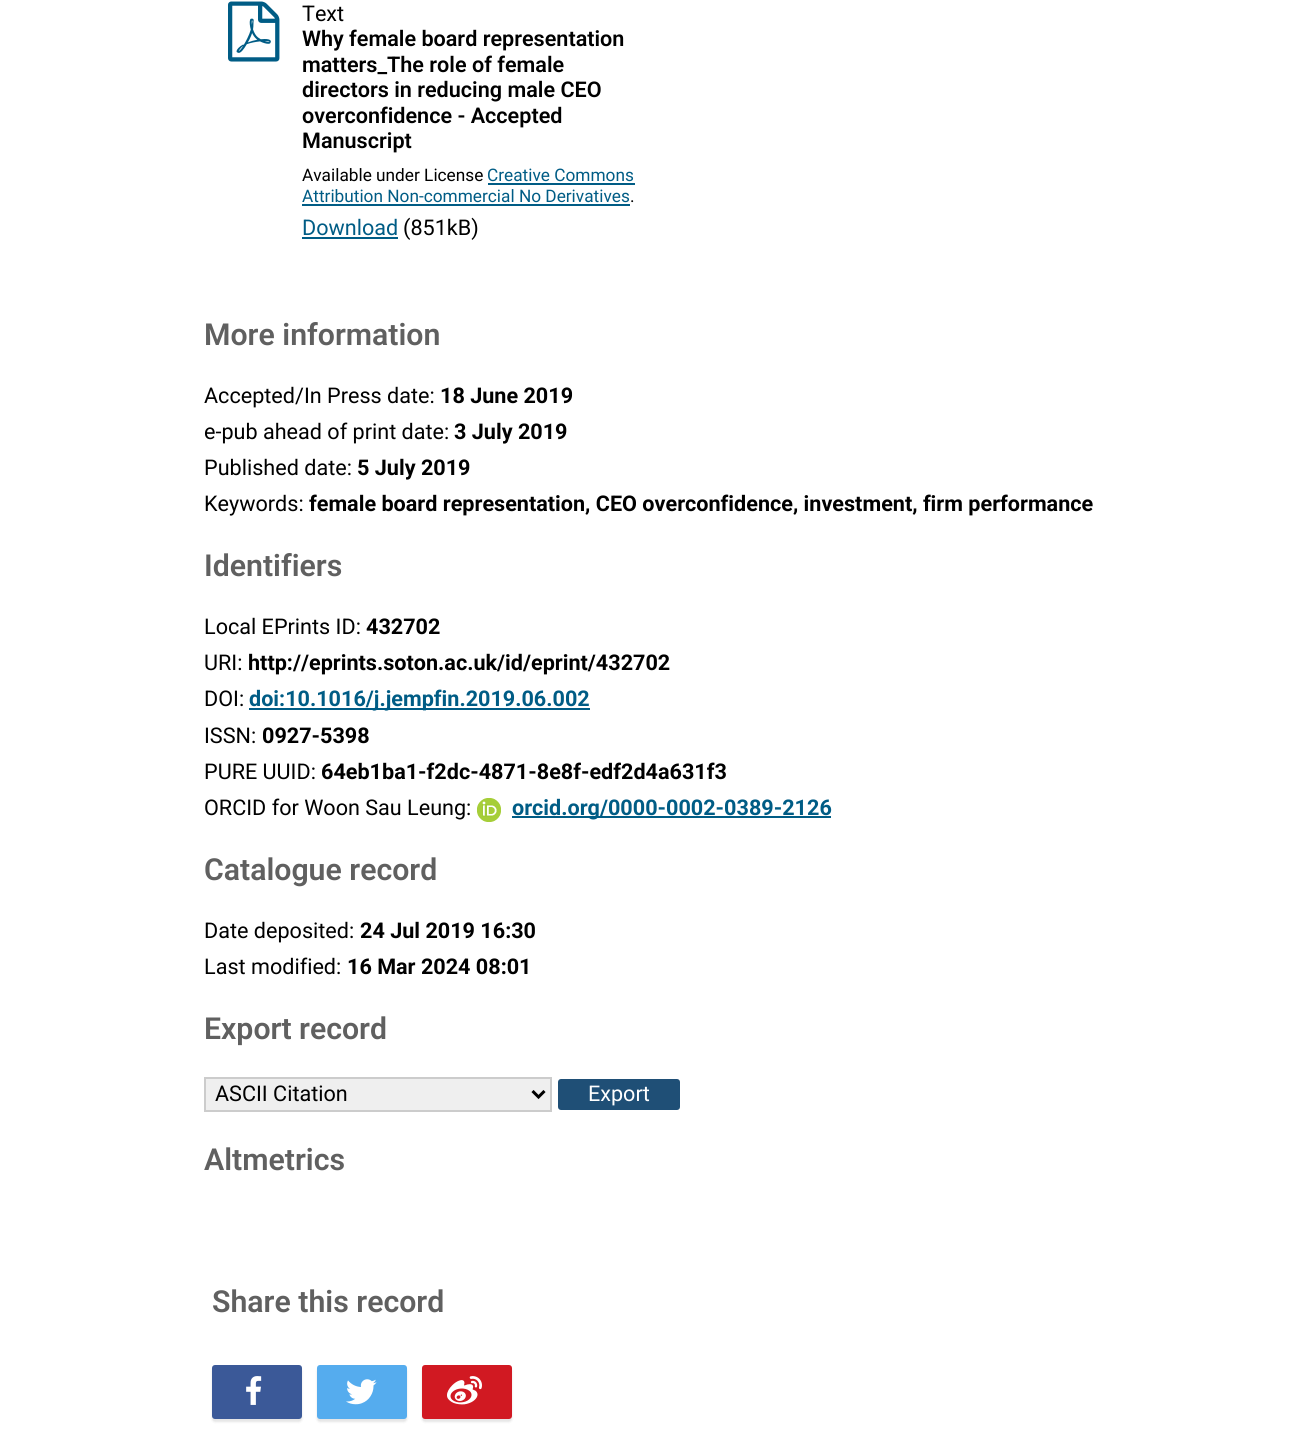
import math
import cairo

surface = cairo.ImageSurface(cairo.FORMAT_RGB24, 1307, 1430)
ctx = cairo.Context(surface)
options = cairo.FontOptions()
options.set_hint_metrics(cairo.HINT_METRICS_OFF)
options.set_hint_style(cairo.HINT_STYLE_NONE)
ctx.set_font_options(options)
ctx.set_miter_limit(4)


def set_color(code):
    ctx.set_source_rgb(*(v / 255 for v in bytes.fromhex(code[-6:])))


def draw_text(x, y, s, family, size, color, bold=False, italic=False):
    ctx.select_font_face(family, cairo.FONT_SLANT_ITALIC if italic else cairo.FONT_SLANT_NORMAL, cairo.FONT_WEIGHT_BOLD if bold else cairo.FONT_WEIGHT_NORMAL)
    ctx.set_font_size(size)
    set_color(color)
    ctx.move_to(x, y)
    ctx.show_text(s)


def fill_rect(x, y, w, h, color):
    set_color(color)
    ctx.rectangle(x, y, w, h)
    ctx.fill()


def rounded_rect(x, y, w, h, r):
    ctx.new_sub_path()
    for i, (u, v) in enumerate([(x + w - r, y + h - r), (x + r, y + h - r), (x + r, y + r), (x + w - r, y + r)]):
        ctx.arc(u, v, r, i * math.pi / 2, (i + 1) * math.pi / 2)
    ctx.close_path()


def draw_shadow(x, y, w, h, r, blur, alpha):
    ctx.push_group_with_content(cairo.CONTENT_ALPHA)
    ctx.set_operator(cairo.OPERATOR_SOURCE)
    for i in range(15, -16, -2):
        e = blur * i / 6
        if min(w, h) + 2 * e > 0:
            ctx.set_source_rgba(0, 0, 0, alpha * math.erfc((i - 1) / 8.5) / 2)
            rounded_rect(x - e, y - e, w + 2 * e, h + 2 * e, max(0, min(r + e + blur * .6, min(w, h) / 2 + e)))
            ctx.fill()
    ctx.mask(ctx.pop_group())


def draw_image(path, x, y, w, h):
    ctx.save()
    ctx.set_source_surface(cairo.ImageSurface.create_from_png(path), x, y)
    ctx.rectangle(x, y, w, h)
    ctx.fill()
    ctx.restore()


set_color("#ffffff")
ctx.paint()
draw_image("assets/img1.png", 228, 1, 52, 61)
draw_text(302, 21, "Text", "Roboto", 21.6, "#000000")
draw_text(302, 46, "Why female board representation", "Roboto SemiBold", 21.6, "#000000")
draw_text(302, 72, "matters_The role of female", "Roboto SemiBold", 21.6, "#000000")
draw_text(302, 97, "directors in reducing male CEO", "Roboto SemiBold", 21.6, "#000000")
draw_text(302, 123, "overconfidence - Accepted", "Roboto SemiBold", 21.6, "#000000")
draw_text(302, 148, "Manuscript", "Roboto SemiBold", 21.6, "#000000")
draw_text(302, 181, "Available under License", "Roboto", 17.25, "#000000")
draw_text(487, 181, "Creative Commons", "Roboto", 17.25, "#005c85")
fill_rect(488, 183, 147, 2, "#005c85")
draw_text(302, 202, "Attribution Non-commercial No Derivatives", "Roboto", 17.25, "#005c85")
fill_rect(302, 204, 328, 2, "#005c85")
draw_text(630, 202, ".", "Roboto", 17.25, "#000000")
draw_text(302, 235, "Download", "Roboto", 21.6, "#005c85")
fill_rect(302, 237, 96, 2, "#005c85")
draw_text(403, 235, "(851kB)", "Roboto", 21.6, "#000000")
draw_text(204, 345, "More information", "Roboto SemiBold", 30.25, "#606060")
draw_text(204, 403, "Accepted/In Press date:", "Roboto", 21.6, "#000000")
draw_text(440, 403, "18 June 2019", "Roboto", 21.6, "#000000", bold=True)
draw_text(204, 439, "e-pub ahead of print date:", "Roboto", 21.6, "#000000")
draw_text(454, 439, "3 July 2019", "Roboto", 21.6, "#000000", bold=True)
draw_text(204, 475, "Published date:", "Roboto", 21.6, "#000000")
draw_text(357, 475, "5 July 2019", "Roboto", 21.6, "#000000", bold=True)
draw_text(204, 511, "Keywords:", "Roboto", 21.6, "#000000")
draw_text(309, 511, "female board representation, CEO overconfidence, investment, firm performance", "Roboto", 21.6, "#000000", bold=True)
draw_text(204, 576, "Identifiers", "Roboto SemiBold", 30.25, "#606060")
draw_text(204, 634, "Local EPrints ID:", "Roboto", 21.6, "#000000")
draw_text(366, 634, "432702", "Roboto", 21.6, "#000000", bold=True)
draw_text(204, 670, "URI:", "Roboto", 21.6, "#000000")
draw_text(248, 670, "http://eprints.soton.ac.uk/id/eprint/432702", "Roboto", 21.6, "#000000", bold=True)
draw_text(204, 706, "DOI:", "Roboto", 21.6, "#000000")
fill_rect(249, 708, 341, 2, "#005c85")
draw_text(249, 706, "doi:10.1016/j.jempfin.2019.06.002", "Roboto", 21.6, "#005c85", bold=True)
draw_text(204, 743, "ISSN:", "Roboto", 21.6, "#000000")
draw_text(262, 743, "0927-5398", "Roboto", 21.6, "#000000", bold=True)
draw_text(204, 779, "PURE UUID:", "Roboto", 21.6, "#000000")
draw_text(321, 779, "64eb1ba1-f2dc-4871-8e8f-edf2d4a631f3", "Roboto", 21.6, "#000000", bold=True)
draw_text(204, 815, "ORCID for Woon Sau Leung:", "Roboto", 21.6, "#000000")
draw_image("assets/img2.png", 477, 798, 24, 24)
fill_rect(512, 816, 319, 2, "#005c85")
draw_text(512, 815, "orcid.org/0000-0002-0389-2126", "Roboto", 21.6, "#005c85", bold=True)
draw_text(204, 880, "Catalogue record", "Roboto SemiBold", 30.25, "#606060")
draw_text(204, 938, "Date deposited:", "Roboto", 21.6, "#000000")
draw_text(360, 938, "24 Jul 2019 16:30", "Roboto", 21.6, "#000000", bold=True)
draw_text(204, 974, "Last modified:", "Roboto", 21.6, "#000000")
draw_text(347, 974, "16 Mar 2024 08:01", "Roboto", 21.6, "#000000", bold=True)
draw_text(204, 1039, "Export record", "Roboto SemiBold", 30.25, "#606060")
set_color("#efefef")
ctx.rectangle(205, 1078, 346, 33)
ctx.fill_preserve()
set_color("#cccccc")
ctx.stroke()
ctx.new_path()
ctx.move_to(532.5, 1091)
ctx.line_to(538.5, 1097)
ctx.line_to(544.5, 1091)
set_color("#000000")
ctx.set_line_width(3)
ctx.stroke()
draw_text(215, 1101, "ASCII Citation", "Roboto", 21.6, "#000000")
set_color("#1f4f76")
rounded_rect(558, 1079, 122, 31, 3)
ctx.fill()
draw_text(588, 1101, "Export", "Roboto", 21.6, "#ffffff")
draw_text(204, 1170, "Altmetrics", "Roboto SemiBold", 30.25, "#606060")
draw_text(212, 1312, "Share this record", "Roboto SemiBold", 30.25, "#606060")
set_color("#000000")
draw_shadow(212, 1368, 90, 54, 3, 1, 0.1)
set_color("#3b5998")
rounded_rect(212, 1365, 90, 54, 3)
ctx.fill()
draw_image("assets/img3.png", 246, 1376, 16, 29)
set_color("#000000")
draw_shadow(317, 1368, 90, 54, 3, 1, 0.1)
set_color("#55acee")
rounded_rect(317, 1365, 90, 54, 3)
ctx.fill()
draw_image("assets/img4.png", 346, 1379, 31, 26)
set_color("#000000")
draw_shadow(422, 1368, 90, 54, 3, 1, 0.1)
set_color("#d11922")
rounded_rect(422, 1365, 90, 54, 3)
ctx.fill()
draw_image("assets/img5.png", 447, 1376, 35, 29)
surface.write_to_png("output.png")
